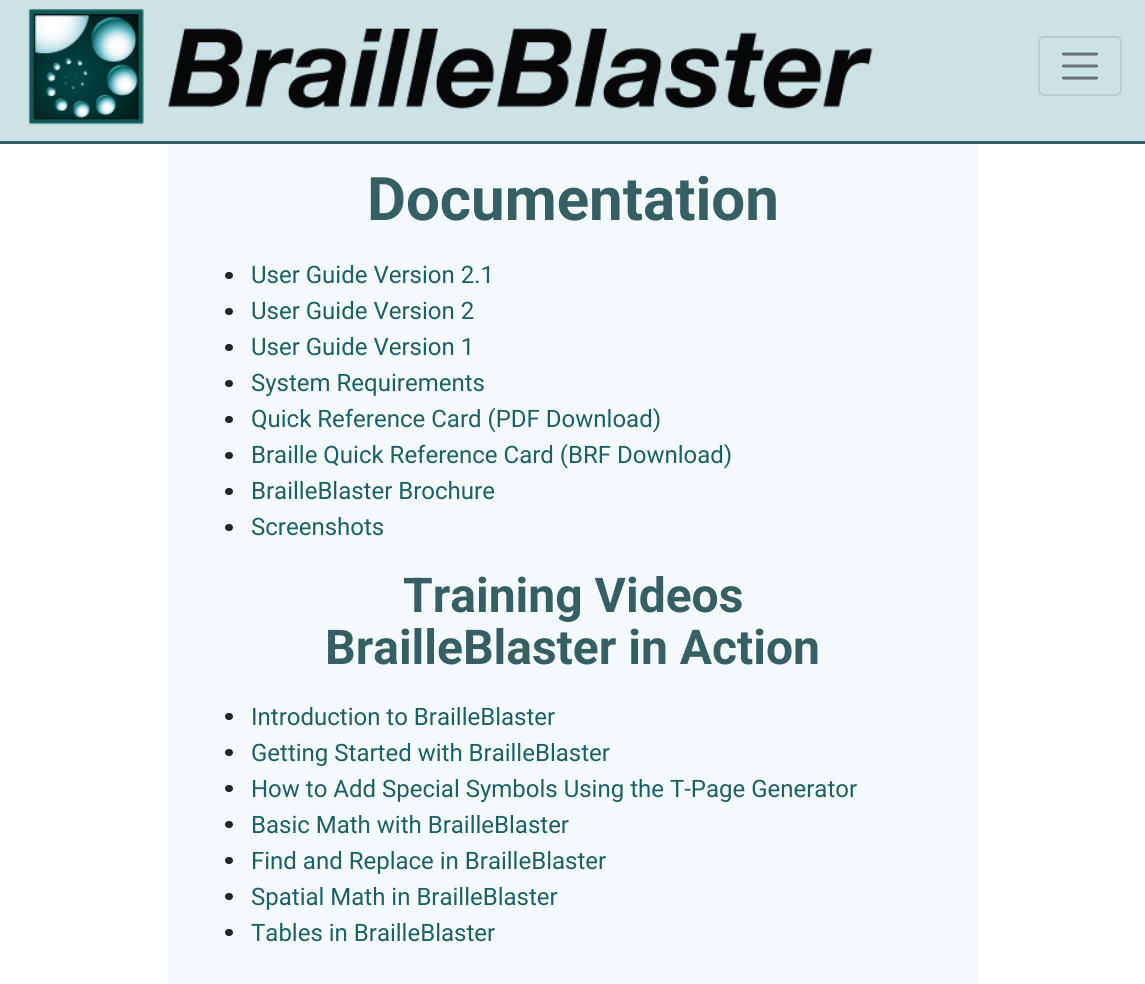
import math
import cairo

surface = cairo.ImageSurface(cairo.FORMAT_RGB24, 1145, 984)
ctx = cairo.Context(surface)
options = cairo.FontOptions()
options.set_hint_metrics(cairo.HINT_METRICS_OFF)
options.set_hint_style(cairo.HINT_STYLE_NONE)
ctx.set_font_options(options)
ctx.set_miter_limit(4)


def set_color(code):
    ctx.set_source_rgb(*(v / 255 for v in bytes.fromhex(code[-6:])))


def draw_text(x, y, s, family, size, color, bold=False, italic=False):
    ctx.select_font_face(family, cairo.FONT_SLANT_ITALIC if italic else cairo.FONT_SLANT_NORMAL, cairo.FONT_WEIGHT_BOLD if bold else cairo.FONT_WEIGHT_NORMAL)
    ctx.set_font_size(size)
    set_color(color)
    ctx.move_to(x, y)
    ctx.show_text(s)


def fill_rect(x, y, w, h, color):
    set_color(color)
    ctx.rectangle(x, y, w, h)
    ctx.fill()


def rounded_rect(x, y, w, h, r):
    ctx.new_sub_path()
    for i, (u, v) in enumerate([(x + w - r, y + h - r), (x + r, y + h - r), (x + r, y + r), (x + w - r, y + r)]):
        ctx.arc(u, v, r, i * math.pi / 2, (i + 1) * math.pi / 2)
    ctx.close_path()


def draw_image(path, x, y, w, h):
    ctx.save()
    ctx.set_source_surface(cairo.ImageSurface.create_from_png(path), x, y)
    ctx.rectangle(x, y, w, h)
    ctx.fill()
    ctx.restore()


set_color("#ffffff")
ctx.paint()
fill_rect(0, 0, 1145, 141, "#cde2e4")
fill_rect(0, 141, 1145, 3, "#365f63")
draw_image("assets/img1.png", 28, 9, 845, 116)
rounded_rect(1039, 37, 82, 58, 5)
set_color("#b9cbcd")
ctx.stroke()
ctx.new_path()
ctx.move_to(1063.5, 54)
ctx.line_to(1096.5, 54)
ctx.move_to(1063.5, 66)
ctx.line_to(1096.5, 66)
ctx.move_to(1063.5, 78)
ctx.line_to(1096.5, 78)
set_color("#677172")
ctx.set_line_width(3)
ctx.set_line_cap(cairo.LINE_CAP_ROUND)
ctx.stroke()
fill_rect(168, 144, 810, 840, "#f4fafb")
draw_text(367, 220, "Documentation", "Roboto", 60, "#365f63", bold=True)
set_color("#212529")
rounded_rect(225, 272, 8, 7, 3.5)
ctx.fill()
draw_text(251, 283, "User Guide Version 2.1", "Roboto", 24, "#1d6064")
set_color("#212529")
rounded_rect(225, 308, 8, 7, 3.5)
ctx.fill()
draw_text(251, 319, "User Guide Version 2", "Roboto", 24, "#1d6064")
set_color("#212529")
rounded_rect(225, 344, 8, 7, 3.5)
ctx.fill()
draw_text(251, 355, "User Guide Version 1", "Roboto", 24, "#1d6064")
set_color("#212529")
rounded_rect(225, 380, 8, 7, 3.5)
ctx.fill()
draw_text(251, 391, "System Requirements", "Roboto", 24, "#1d6064")
set_color("#212529")
rounded_rect(225, 416, 8, 7, 3.5)
ctx.fill()
draw_text(251, 427, "Quick Reference Card (PDF Download)", "Roboto", 24, "#1d6064")
set_color("#212529")
rounded_rect(225, 452, 8, 7, 3.5)
ctx.fill()
draw_text(251, 463, "Braille Quick Reference Card (BRF Download)", "Roboto", 24, "#1d6064")
set_color("#212529")
rounded_rect(225, 488, 8, 7, 3.5)
ctx.fill()
draw_text(251, 499, "BrailleBlaster Brochure", "Roboto", 24, "#1d6064")
set_color("#212529")
rounded_rect(225, 524, 8, 7, 3.5)
ctx.fill()
draw_text(251, 535, "Screenshots", "Roboto", 24, "#1d6064")
draw_text(403, 612, "Training Videos", "Roboto", 48, "#365f63", bold=True)
draw_text(325, 664, "BrailleBlaster in Action", "Roboto", 48, "#365f63", bold=True)
set_color("#212529")
rounded_rect(225, 713, 8, 7, 3.5)
ctx.fill()
draw_text(251, 725, "Introduction to BrailleBlaster", "Roboto", 24, "#1d6064")
set_color("#212529")
rounded_rect(225, 749, 8, 7, 3.5)
ctx.fill()
draw_text(251, 761, "Getting Started with BrailleBlaster", "Roboto", 24, "#1d6064")
set_color("#212529")
rounded_rect(225, 785, 8, 7, 3.5)
ctx.fill()
draw_text(251, 797, "How to Add Special Symbols Using the T-Page Generator", "Roboto", 24, "#1d6064")
set_color("#212529")
rounded_rect(225, 821, 8, 7, 3.5)
ctx.fill()
draw_text(251, 833, "Basic Math with BrailleBlaster", "Roboto", 24, "#1d6064")
set_color("#212529")
rounded_rect(225, 857, 8, 7, 3.5)
ctx.fill()
draw_text(251, 869, "Find and Replace in BrailleBlaster", "Roboto", 24, "#1d6064")
set_color("#212529")
rounded_rect(225, 893, 8, 7, 3.5)
ctx.fill()
draw_text(251, 905, "Spatial Math in BrailleBlaster", "Roboto", 24, "#1d6064")
set_color("#212529")
rounded_rect(225, 929, 8, 7, 3.5)
ctx.fill()
draw_text(251, 941, "Tables in BrailleBlaster", "Roboto", 24, "#1d6064")
surface.write_to_png("output.png")
